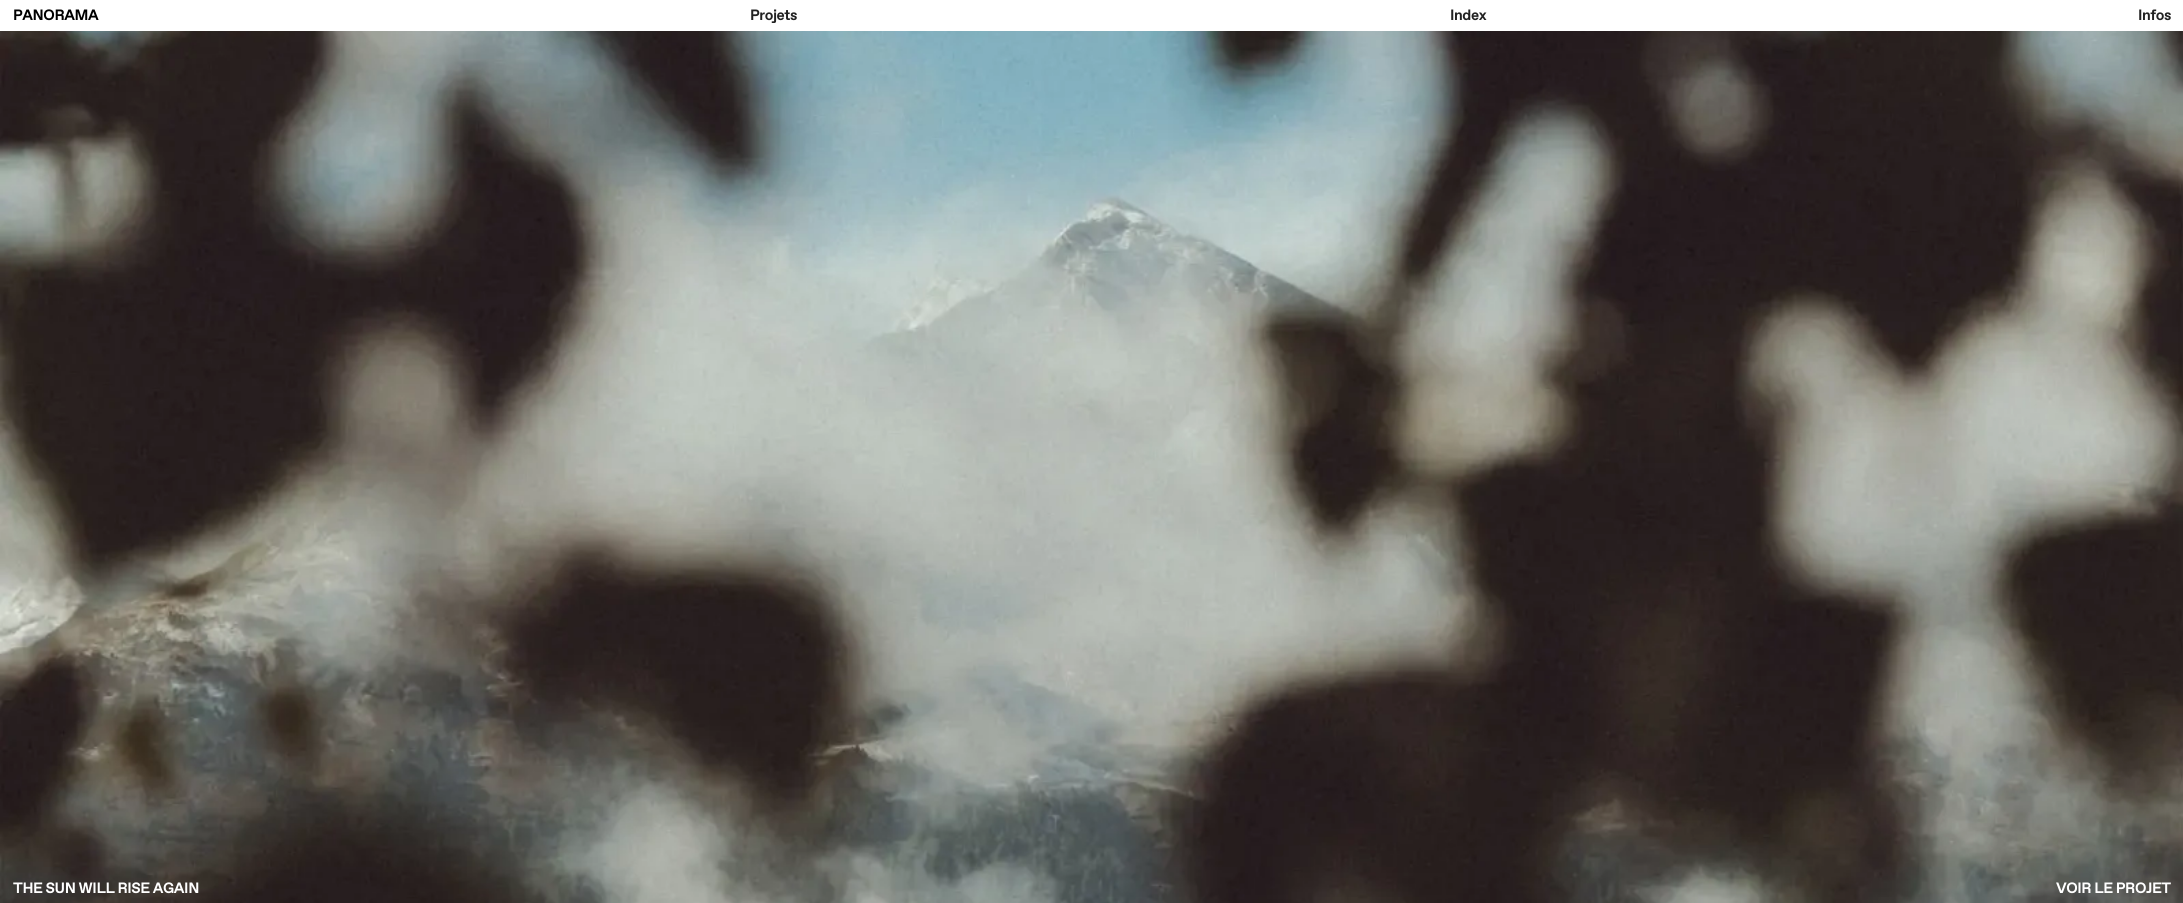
import math
import cairo

surface = cairo.ImageSurface(cairo.FORMAT_RGB24, 2183, 903)
ctx = cairo.Context(surface)
options = cairo.FontOptions()
options.set_hint_metrics(cairo.HINT_METRICS_OFF)
options.set_hint_style(cairo.HINT_STYLE_NONE)
ctx.set_font_options(options)
ctx.set_miter_limit(4)


def set_color(code):
    ctx.set_source_rgb(*(v / 255 for v in bytes.fromhex(code[-6:])))


def draw_spaced(x, y, s, letter, word):
    ctx.move_to(x, y)
    for ch in s:
        ctx.show_text(ch)
        ctx.rel_move_to(letter + word * (ch == ' '), 0)


def draw_image(path, x, y, w, h):
    ctx.save()
    ctx.set_source_surface(cairo.ImageSurface.create_from_png(path), x, y)
    ctx.rectangle(x, y, w, h)
    ctx.fill()
    ctx.restore()


set_color("#ffffff")
ctx.paint()
ctx.select_font_face("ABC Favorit", cairo.FONT_SLANT_NORMAL, cairo.FONT_WEIGHT_BOLD)
ctx.set_font_size(15)
set_color("#000000")
draw_spaced(13, 20, "PANORAMA", -0.45, 0)
set_color("#222222")
draw_spaced(750, 20, "Projets", -0.45, 0)
draw_spaced(1450, 20, "Index", -0.45, 0)
draw_spaced(2138, 20, "Infos", -0.45, 0)
draw_image("assets/img1.png", 0, 31, 2183, 872)
set_color("#ffffff")
draw_spaced(13, 893, "THE SUN WILL RISE AGAIN", -0.45, 0)
draw_spaced(2056, 893, "VOIR LE PROJET", -0.45, 0)
surface.write_to_png("output.png")
